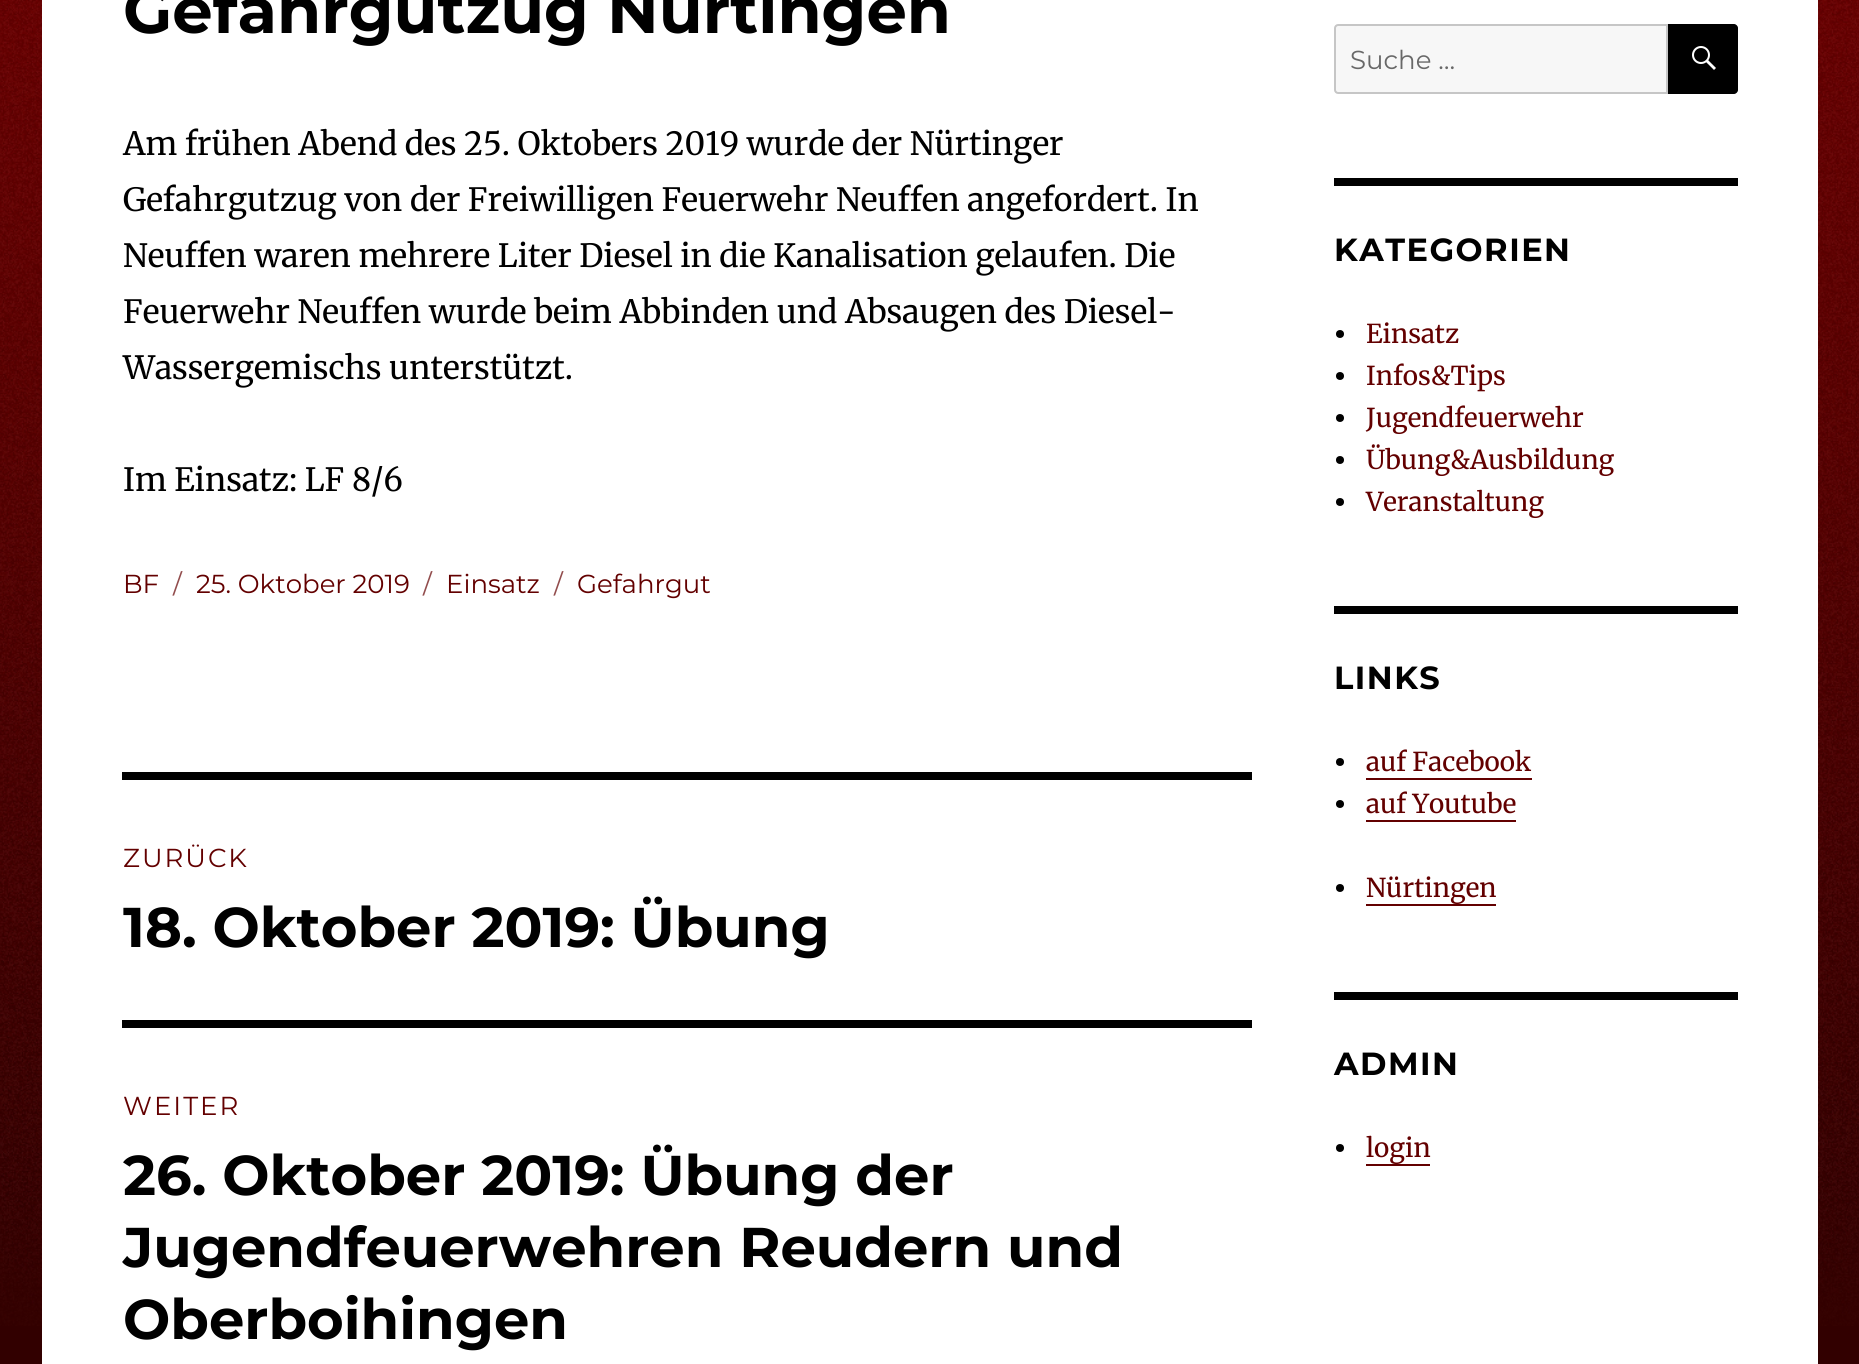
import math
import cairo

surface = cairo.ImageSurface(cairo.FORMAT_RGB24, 1859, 1364)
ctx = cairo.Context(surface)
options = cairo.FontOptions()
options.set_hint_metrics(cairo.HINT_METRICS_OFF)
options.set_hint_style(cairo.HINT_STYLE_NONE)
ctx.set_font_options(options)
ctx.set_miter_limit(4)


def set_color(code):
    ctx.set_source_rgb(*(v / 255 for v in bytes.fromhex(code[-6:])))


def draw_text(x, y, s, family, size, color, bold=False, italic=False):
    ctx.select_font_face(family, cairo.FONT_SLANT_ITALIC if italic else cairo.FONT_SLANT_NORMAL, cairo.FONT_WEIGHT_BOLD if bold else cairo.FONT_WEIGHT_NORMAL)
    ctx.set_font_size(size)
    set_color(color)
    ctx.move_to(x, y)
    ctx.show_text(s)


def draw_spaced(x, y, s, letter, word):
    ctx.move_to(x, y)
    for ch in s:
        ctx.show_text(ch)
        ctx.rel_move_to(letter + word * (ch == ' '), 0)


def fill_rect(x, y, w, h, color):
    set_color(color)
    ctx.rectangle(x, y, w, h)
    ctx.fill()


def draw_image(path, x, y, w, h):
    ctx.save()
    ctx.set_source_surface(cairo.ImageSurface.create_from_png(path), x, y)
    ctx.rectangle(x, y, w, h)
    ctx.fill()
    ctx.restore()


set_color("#320000")
ctx.paint()
draw_image("assets/img1.png", 0, 0, 1859, 1326)
fill_rect(42, 0, 1776, 1364, "#ffffff")
draw_text(123, 33, "Gefahrgutzug Nürtingen", "Montserrat", 64, "#000000", bold=True)
draw_text(123, 155, "Am frühen Abend des 25. Oktobers 2019 wurde der Nürtinger", "Merriweather", 32, "#000000")
draw_text(123, 211, "Gefahrgutzug von der Freiwilligen Feuerwehr Neuffen angefordert. In", "Merriweather", 32, "#000000")
draw_text(123, 267, "Neuffen waren mehrere Liter Diesel in die Kanalisation gelaufen. Die", "Merriweather", 32, "#000000")
draw_text(123, 323, "Feuerwehr Neuffen wurde beim Abbinden und Absaugen des Diesel-", "Merriweather", 32, "#000000")
draw_text(123, 379, "Wassergemischs unterstützt.", "Merriweather", 32, "#000000")
draw_text(123, 491, "Im Einsatz: LF 8/6", "Merriweather", 32, "#000000")
draw_text(123, 593, "BF", "Montserrat", 26, "#630000")
draw_text(173, 593, "/", "Montserrat", 26, "#924d4d")
draw_text(196, 593, "25. Oktober 2019", "Montserrat", 26, "#630000")
draw_text(423, 593, "/", "Montserrat", 26, "#924d4d")
draw_text(446, 593, "Einsatz", "Montserrat", 26, "#630000")
draw_text(554, 593, "/", "Montserrat", 26, "#924d4d")
draw_text(577, 593, "Gefahrgut", "Montserrat", 26, "#630000")
fill_rect(122, 772, 1130, 8, "#000000")
set_color("#630000")
draw_spaced(123, 867, "ZURÜCK", 2, 0)
draw_text(123, 947, "18. Oktober 2019: Übung", "Montserrat", 56, "#000000", bold=True)
fill_rect(122, 1020, 1130, 8, "#000000")
ctx.select_font_face("Montserrat")
ctx.set_font_size(26)
set_color("#630000")
draw_spaced(123, 1115, "WEITER", 2, 0)
draw_text(123, 1195, "26. Oktober 2019: Übung der", "Montserrat", 56, "#000000", bold=True)
draw_text(123, 1267, "Jugendfeuerwehren Reudern und", "Montserrat", 56, "#000000", bold=True)
draw_text(123, 1339, "Oberboihingen", "Montserrat", 56, "#000000", bold=True)
set_color("#f7f7f7")
ctx.new_path()
ctx.move_to(1338, 24)
ctx.line_to(1668, 24)
ctx.line_to(1668, 94)
ctx.line_to(1338, 94)
ctx.curve_to(1336, 94, 1334, 92, 1334, 90)
ctx.line_to(1334, 28)
ctx.curve_to(1334, 26, 1336, 24, 1338, 24)
ctx.close_path()
ctx.fill()
ctx.new_path()
ctx.move_to(1338, 25)
ctx.line_to(1667, 25)
ctx.line_to(1667, 93)
ctx.line_to(1338, 93)
ctx.curve_to(1336.5, 93, 1335, 91.5, 1335, 90)
ctx.line_to(1335, 28)
ctx.curve_to(1335, 26.5, 1336.5, 25, 1338, 25)
ctx.close_path()
ctx.set_source_rgba(0, 0, 0, 0.2)
ctx.stroke()
draw_text(1350, 69, "Suche …", "Montserrat", 26, "#686868")
set_color("#000000")
ctx.new_path()
ctx.move_to(1668, 24)
ctx.line_to(1734, 24)
ctx.curve_to(1736, 24, 1738, 26, 1738, 28)
ctx.line_to(1738, 90)
ctx.curve_to(1738, 92, 1736, 94, 1734, 94)
ctx.line_to(1668, 94)
ctx.close_path()
ctx.fill()
draw_image("assets/img2.png", 1692, 46, 24, 24)
fill_rect(1334, 178, 404, 8, "#000000")
ctx.select_font_face("Montserrat", cairo.FONT_SLANT_NORMAL, cairo.FONT_WEIGHT_BOLD)
ctx.set_font_size(32)
draw_spaced(1334, 261, "KATEGORIEN", 1.5, 0)
ctx.new_path()
ctx.arc(1340, 334, 4, 0, 2 * math.pi)
ctx.fill()
draw_text(1366, 343, "Einsatz", "Merriweather", 26, "#630000")
set_color("#000000")
ctx.new_path()
ctx.arc(1340, 376, 4, 0, 2 * math.pi)
ctx.fill()
draw_text(1366, 385, "Infos&Tips", "Merriweather", 26, "#630000")
set_color("#000000")
ctx.new_path()
ctx.arc(1340, 418, 4, 0, 2 * math.pi)
ctx.fill()
draw_text(1366, 427, "Jugendfeuerwehr", "Merriweather", 26, "#630000")
set_color("#000000")
ctx.new_path()
ctx.arc(1340, 460, 4, 0, 2 * math.pi)
ctx.fill()
draw_text(1366, 469, "Übung&Ausbildung", "Merriweather", 26, "#630000")
set_color("#000000")
ctx.new_path()
ctx.arc(1340, 502, 4, 0, 2 * math.pi)
ctx.fill()
draw_text(1366, 511, "Veranstaltung", "Merriweather", 26, "#630000")
fill_rect(1334, 606, 404, 8, "#000000")
ctx.select_font_face("Montserrat", cairo.FONT_SLANT_NORMAL, cairo.FONT_WEIGHT_BOLD)
ctx.set_font_size(32)
draw_spaced(1334, 689, "LINKS", 1.5, 0)
ctx.new_path()
ctx.arc(1340, 762, 4, 0, 2 * math.pi)
ctx.fill()
draw_text(1366, 771, "auf Facebook", "Merriweather", 26, "#630000")
fill_rect(1366, 778, 166, 2, "#630000")
set_color("#000000")
ctx.new_path()
ctx.arc(1340, 804, 4, 0, 2 * math.pi)
ctx.fill()
draw_text(1366, 813, "auf Youtube", "Merriweather", 26, "#630000")
fill_rect(1366, 820, 150, 2, "#630000")
set_color("#000000")
ctx.new_path()
ctx.arc(1340, 888, 4, 0, 2 * math.pi)
ctx.fill()
draw_text(1366, 897, "Nürtingen", "Merriweather", 26, "#630000")
fill_rect(1366, 904, 130, 2, "#630000")
fill_rect(1334, 992, 404, 8, "#000000")
ctx.select_font_face("Montserrat", cairo.FONT_SLANT_NORMAL, cairo.FONT_WEIGHT_BOLD)
ctx.set_font_size(32)
draw_spaced(1334, 1075, "ADMIN", 1.5, 0)
ctx.new_path()
ctx.arc(1340, 1148, 4, 0, 2 * math.pi)
ctx.fill()
draw_text(1366, 1157, "login", "Merriweather", 26, "#630000")
fill_rect(1366, 1164, 64, 2, "#630000")
surface.write_to_png("output.png")
